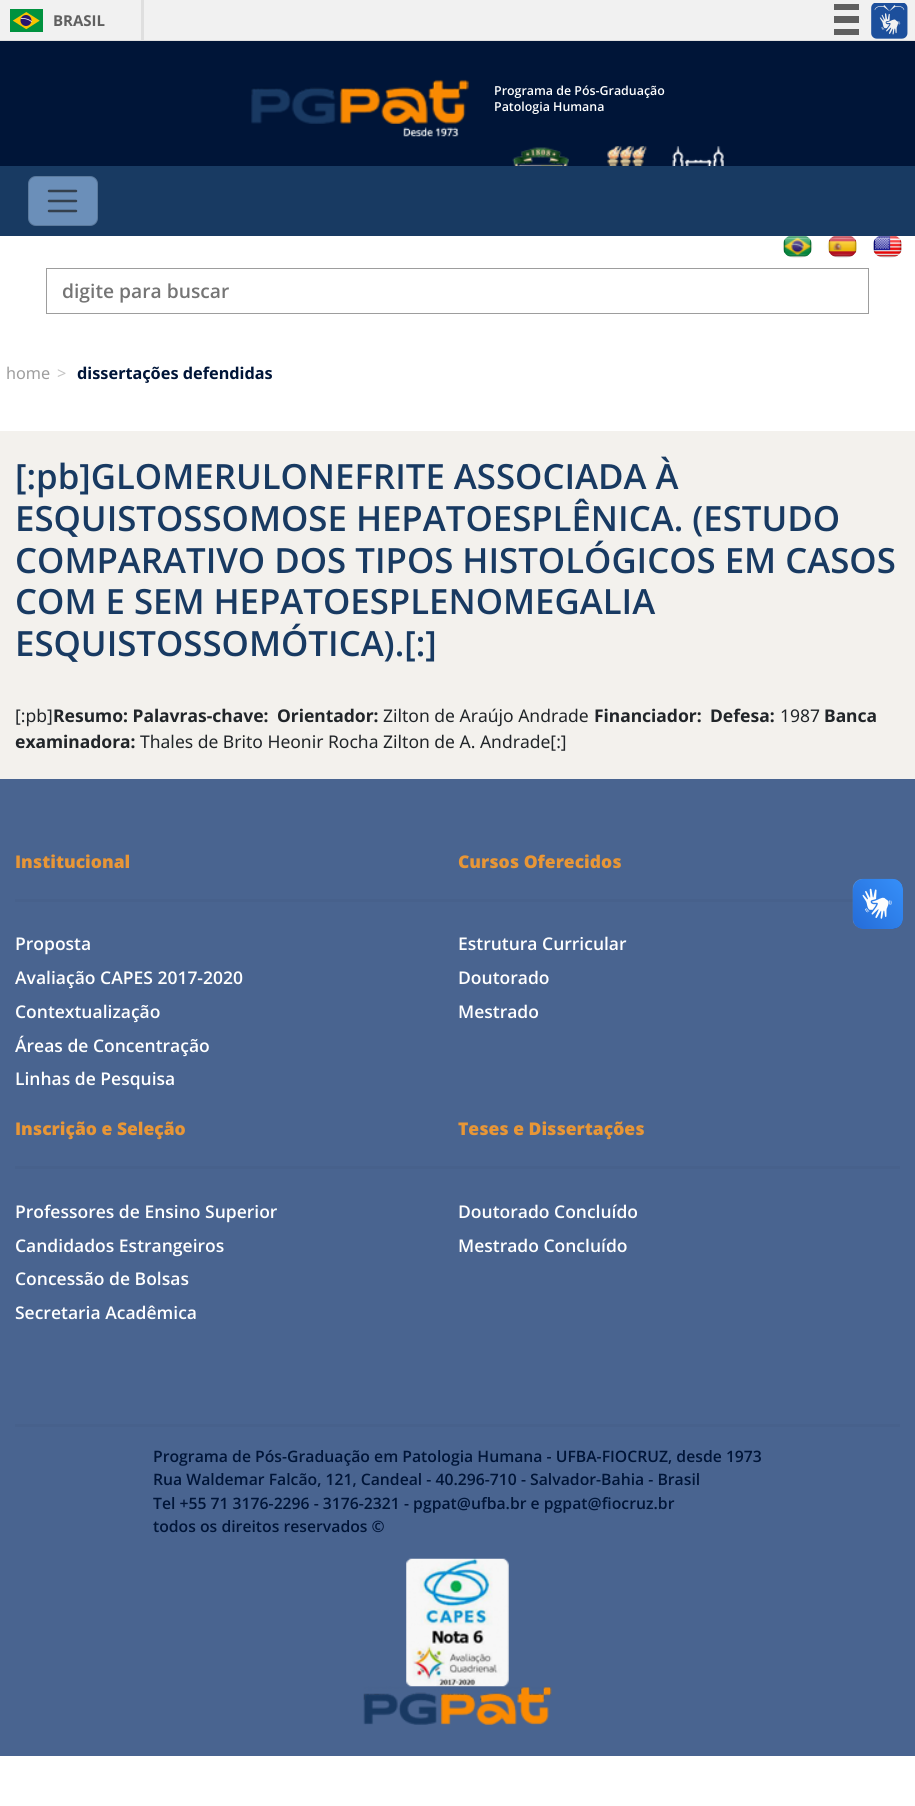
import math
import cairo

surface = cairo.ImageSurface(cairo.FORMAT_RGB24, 915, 1806)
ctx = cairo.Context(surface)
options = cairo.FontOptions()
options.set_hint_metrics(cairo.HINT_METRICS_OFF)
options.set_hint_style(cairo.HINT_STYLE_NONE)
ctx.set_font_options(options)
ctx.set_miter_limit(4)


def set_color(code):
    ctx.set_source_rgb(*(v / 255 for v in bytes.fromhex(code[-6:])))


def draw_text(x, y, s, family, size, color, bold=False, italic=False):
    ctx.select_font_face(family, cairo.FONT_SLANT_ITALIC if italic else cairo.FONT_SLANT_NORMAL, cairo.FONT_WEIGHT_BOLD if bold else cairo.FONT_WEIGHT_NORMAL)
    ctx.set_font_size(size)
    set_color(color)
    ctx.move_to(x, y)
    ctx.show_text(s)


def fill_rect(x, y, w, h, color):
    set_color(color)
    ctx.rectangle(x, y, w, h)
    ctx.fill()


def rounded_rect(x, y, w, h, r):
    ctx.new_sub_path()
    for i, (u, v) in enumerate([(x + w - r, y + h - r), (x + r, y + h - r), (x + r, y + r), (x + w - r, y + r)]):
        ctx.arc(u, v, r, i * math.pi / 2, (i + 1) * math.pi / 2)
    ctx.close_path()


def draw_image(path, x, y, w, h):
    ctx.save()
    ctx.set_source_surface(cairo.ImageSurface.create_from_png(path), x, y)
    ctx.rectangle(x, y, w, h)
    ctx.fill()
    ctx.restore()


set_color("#ffffff")
ctx.paint()
fill_rect(0, 0, 915, 40, "#f1f1f1")
fill_rect(0, 40, 915, 1, "#dfdfdf")
fill_rect(141, 0, 3, 40, "#dfdfdf")
draw_image("assets/img1.png", 10, 9, 33, 23)
draw_text(53, 26, "BRASIL", "Open Sans", 15, "#606060", bold=True)
fill_rect(834, 4, 25, 6, "#606060")
fill_rect(834, 16, 25, 7, "#606060")
fill_rect(834, 29, 25, 6, "#606060")
draw_image("assets/img2.png", 871, 3, 37, 36)
fill_rect(0, 41, 915, 125, "#001538")
draw_image("assets/img3.png", 251, 79, 218, 58)
draw_text(494, 95, "Programa de Pós-Graduação", "Open Sans SemiBold", 12.4, "#ffffff")
draw_text(494, 111, "Patologia Humana", "Open Sans SemiBold", 12.4, "#ffffff")
draw_image("assets/img4.png", 512, 146, 212, 20)
draw_image("assets/img5.png", 783, 236, 30, 22)
draw_image("assets/img6.png", 827, 236, 30, 22)
draw_image("assets/img7.png", 873, 236, 29, 22)
fill_rect(0, 166, 915, 70, "#183a62")
set_color("#6b8fb9")
rounded_rect(28, 176, 70, 50, 8)
ctx.fill()
rounded_rect(28.5, 176.5, 69, 49, 7.5)
ctx.set_source_rgba(0, 0, 0, 0.15)
ctx.set_line_width(1)
ctx.stroke()
ctx.new_path()
ctx.move_to(49, 191)
ctx.line_to(76, 191)
ctx.move_to(49, 201)
ctx.line_to(76, 201)
ctx.move_to(49, 211)
ctx.line_to(76, 211)
set_color("#34404d")
ctx.set_line_width(2.5)
ctx.set_line_cap(cairo.LINE_CAP_ROUND)
ctx.stroke()
ctx.rectangle(46.5, 268.5, 822, 45)
set_color("#9d9d9d")
ctx.set_line_width(1)
ctx.set_line_cap(cairo.LINE_CAP_BUTT)
ctx.stroke()
draw_text(62, 298, "digite para buscar", "Open Sans SemiBold", 19.25, "#757575")
draw_text(6, 379, "home", "Noto Sans", 16.25, "#9d9d9d")
draw_text(57, 379, ">", "Noto Sans", 16.25, "#c4c4c4")
draw_text(77, 379, "dissertações defendidas", "Noto Sans", 16.25, "#001538", bold=True)
fill_rect(0, 431, 915, 348, "#f3f1ed")
draw_text(15, 489, "[:pb]GLOMERULONEFRITE ASSOCIADA À", "Open Sans SemiBold", 34.75, "#183a62")
draw_text(15, 531, "ESQUISTOSSOMOSE HEPATOESPLÊNICA. (ESTUDO", "Open Sans SemiBold", 34.75, "#183a62")
draw_text(15, 573, "COMPARATIVO DOS TIPOS HISTOLÓGICOS EM CASOS", "Open Sans SemiBold", 34.75, "#183a62")
draw_text(15, 614, "COM E SEM HEPATOESPLENOMEGALIA", "Open Sans SemiBold", 34.75, "#183a62")
draw_text(15, 656, "ESQUISTOSSOMÓTICA).[:]", "Open Sans SemiBold", 34.75, "#183a62")
draw_text(15, 722, "[:pb]", "Noto Sans", 17.5, "#212529")
draw_text(53, 722, "Resumo: Palavras-chave:", "Noto Sans", 17.5, "#212529", bold=True)
draw_text(277, 722, "Orientador:", "Noto Sans", 17.5, "#212529", bold=True)
draw_text(383, 722, "Zilton de Araújo Andrade", "Noto Sans", 17.5, "#212529")
draw_text(594, 722, "Financiador:", "Noto Sans", 17.5, "#212529", bold=True)
draw_text(710, 722, "Defesa:", "Noto Sans", 17.5, "#212529", bold=True)
draw_text(780, 722, "1987", "Noto Sans", 17.5, "#212529")
draw_text(824, 722, "Banca", "Noto Sans", 17.5, "#212529", bold=True)
draw_text(15, 748, "examinadora:", "Noto Sans", 17.5, "#212529", bold=True)
draw_text(140, 748, "Thales de Brito Heonir Rocha Zilton de A. Andrade[:]", "Noto Sans", 17.5, "#212529")
fill_rect(0, 779, 915, 977, "#496490")
fill_rect(15, 1424, 885, 3, "#47618c")
draw_text(15, 868, "Institucional", "Open Sans ExtraBold", 17.5, "#e89636")
fill_rect(15, 899, 838, 3, "#47618c")
draw_text(15, 950, "Proposta", "Open Sans SemiBold", 17.5, "#ffffff")
draw_text(15, 984, "Avaliação CAPES 2017-2020", "Open Sans SemiBold", 17.5, "#ffffff")
draw_text(15, 1018, "Contextualização", "Open Sans SemiBold", 17.5, "#ffffff")
draw_text(15, 1052, "Áreas de Concentração", "Open Sans SemiBold", 17.5, "#ffffff")
draw_text(15, 1085, "Linhas de Pesquisa", "Open Sans SemiBold", 17.5, "#ffffff")
draw_text(458, 868, "Cursos Oferecidos", "Open Sans ExtraBold", 17.5, "#e89636")
draw_text(458, 950, "Estrutura Curricular", "Open Sans SemiBold", 17.5, "#ffffff")
draw_text(458, 984, "Doutorado", "Open Sans SemiBold", 17.5, "#ffffff")
draw_text(458, 1018, "Mestrado", "Open Sans SemiBold", 17.5, "#ffffff")
draw_text(15, 1135, "Inscrição e Seleção", "Open Sans ExtraBold", 17.5, "#e89636")
fill_rect(15, 1166, 885, 3, "#47618c")
draw_text(15, 1218, "Professores de Ensino Superior", "Open Sans SemiBold", 17.5, "#ffffff")
draw_text(15, 1252, "Candidados Estrangeiros", "Open Sans SemiBold", 17.5, "#ffffff")
draw_text(15, 1285, "Concessão de Bolsas", "Open Sans SemiBold", 17.5, "#ffffff")
draw_text(15, 1319, "Secretaria Acadêmica", "Open Sans SemiBold", 17.5, "#ffffff")
draw_text(458, 1135, "Teses e Dissertações", "Open Sans ExtraBold", 17.5, "#e89636")
draw_text(458, 1218, "Doutorado Concluído", "Open Sans SemiBold", 17.5, "#ffffff")
draw_text(458, 1252, "Mestrado Concluído", "Open Sans SemiBold", 17.5, "#ffffff")
draw_text(153, 1462, "Programa de Pós-Graduação em Patologia Humana - UFBA-FIOCRUZ, desde 1973", "Open Sans SemiBold", 15.75, "#001538")
draw_text(153, 1485, "Rua Waldemar Falcão, 121, Candeal - 40.296-710 - Salvador-Bahia - Brasil", "Open Sans SemiBold", 15.75, "#001538")
draw_text(153, 1509, "Tel +55 71 3176-2296 - 3176-2321 - pgpat@ufba.br e pgpat@fiocruz.br", "Open Sans SemiBold", 15.75, "#001538")
draw_text(153, 1532, "todos os direitos reservados ©", "Open Sans SemiBold", 15.75, "#001538")
draw_image("assets/img8.png", 406, 1558, 103, 129)
draw_image("assets/img9.png", 363, 1686, 189, 39)
draw_image("assets/img10.png", 852, 878, 51, 51)
draw_image("assets/img11.png", 853, 879, 50, 50)
surface.write_to_png("output.png")
